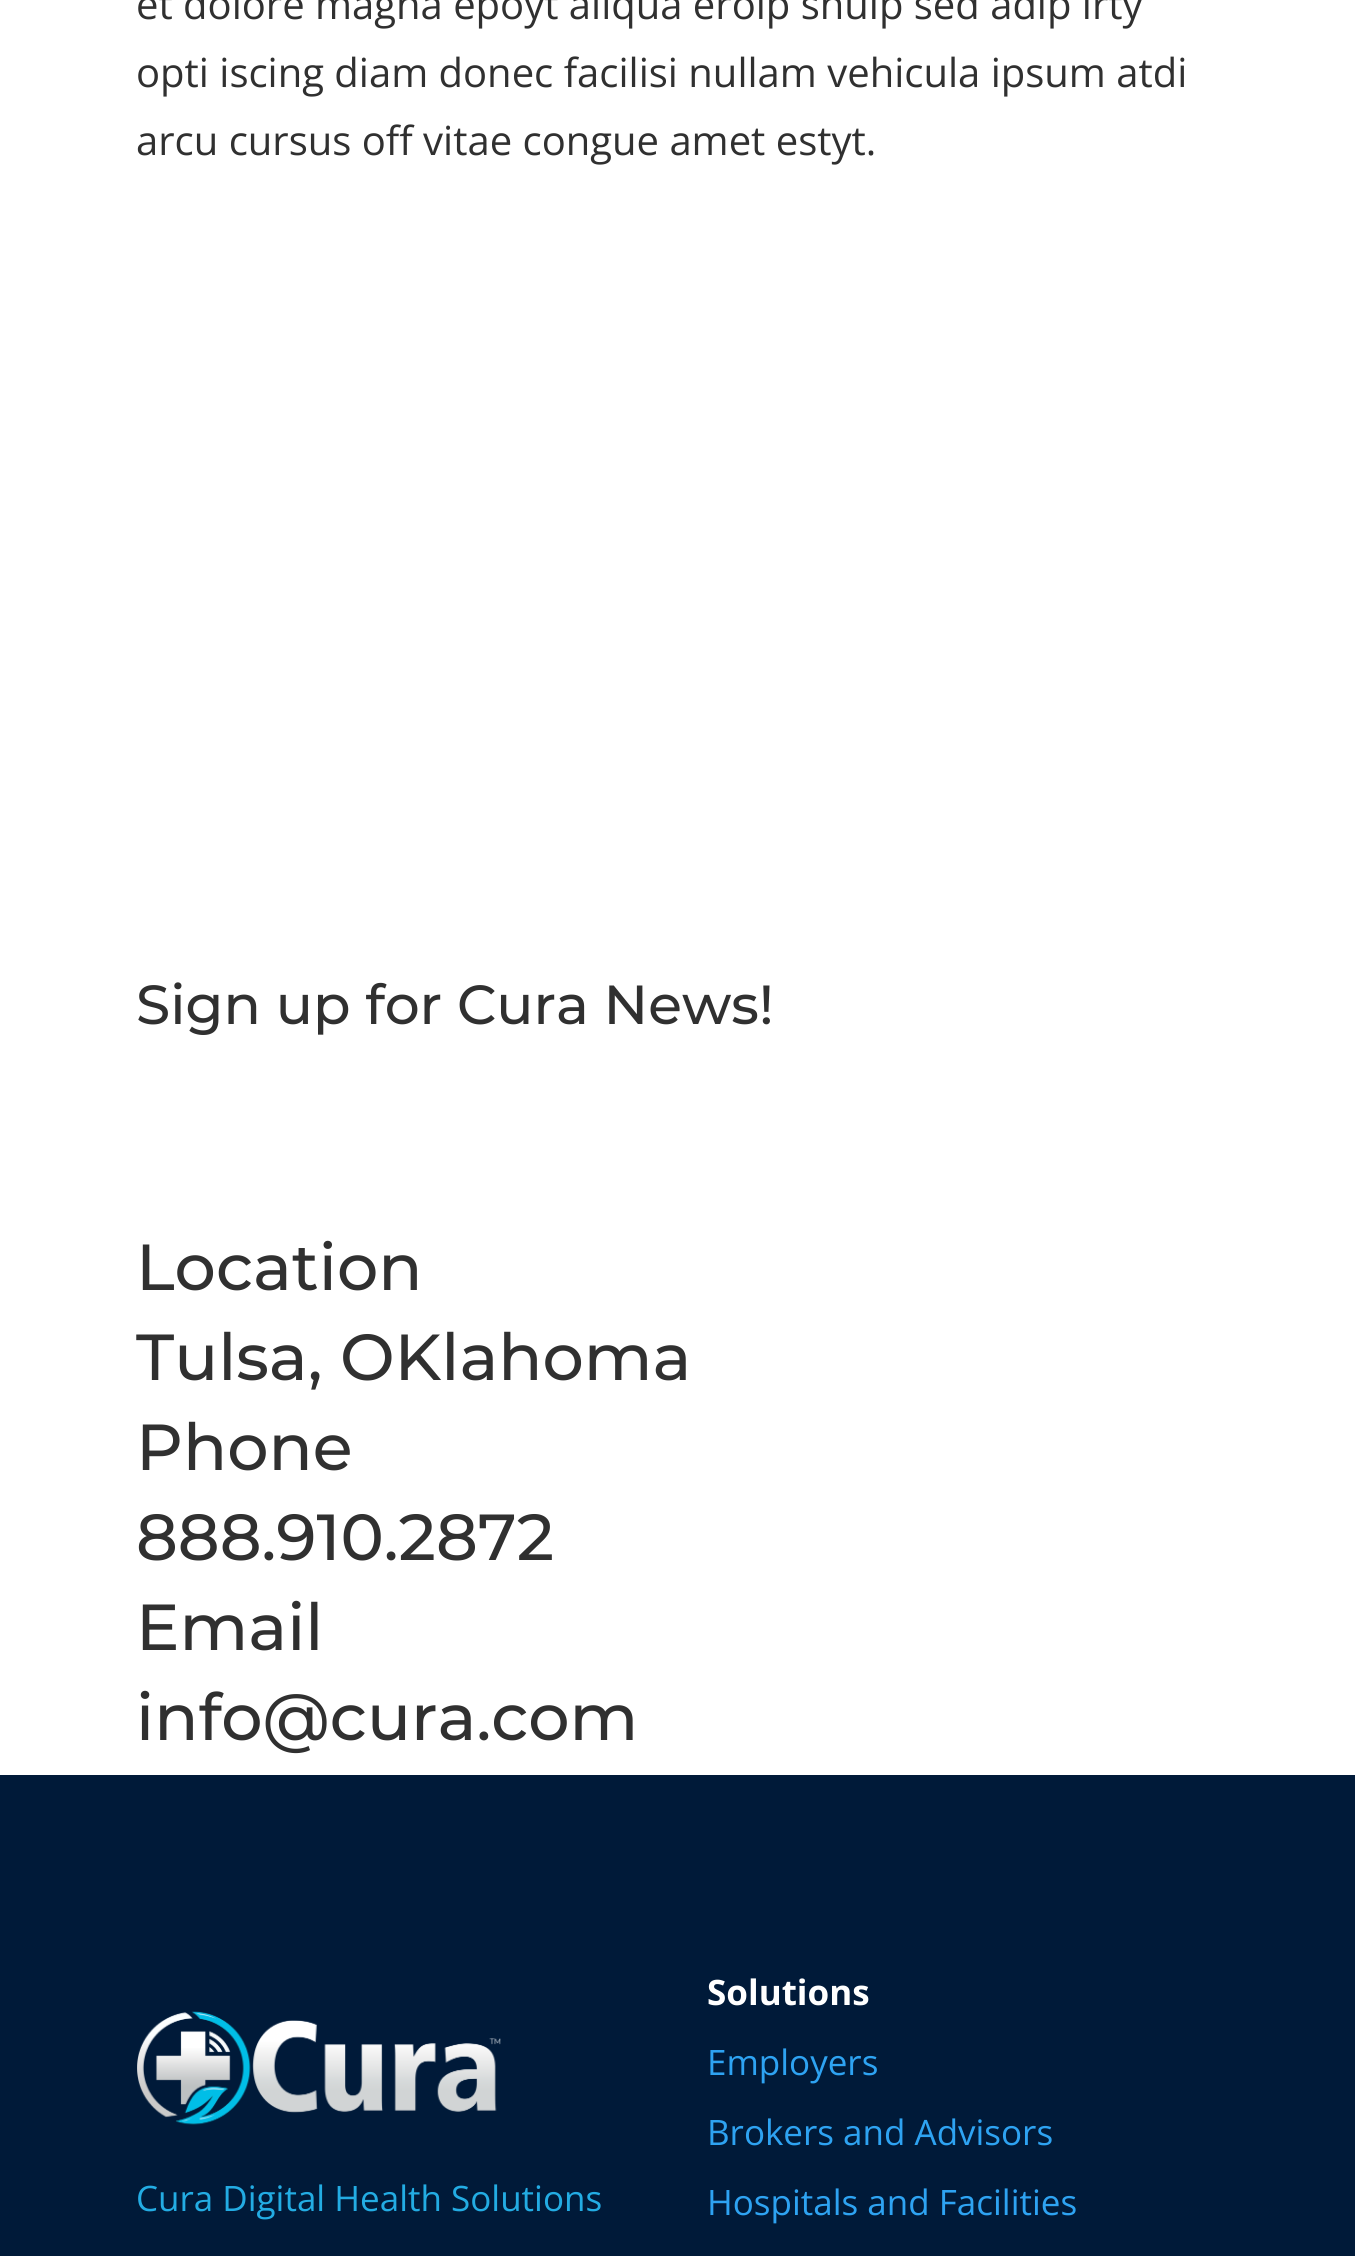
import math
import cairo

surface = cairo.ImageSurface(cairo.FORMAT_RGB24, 1355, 2256)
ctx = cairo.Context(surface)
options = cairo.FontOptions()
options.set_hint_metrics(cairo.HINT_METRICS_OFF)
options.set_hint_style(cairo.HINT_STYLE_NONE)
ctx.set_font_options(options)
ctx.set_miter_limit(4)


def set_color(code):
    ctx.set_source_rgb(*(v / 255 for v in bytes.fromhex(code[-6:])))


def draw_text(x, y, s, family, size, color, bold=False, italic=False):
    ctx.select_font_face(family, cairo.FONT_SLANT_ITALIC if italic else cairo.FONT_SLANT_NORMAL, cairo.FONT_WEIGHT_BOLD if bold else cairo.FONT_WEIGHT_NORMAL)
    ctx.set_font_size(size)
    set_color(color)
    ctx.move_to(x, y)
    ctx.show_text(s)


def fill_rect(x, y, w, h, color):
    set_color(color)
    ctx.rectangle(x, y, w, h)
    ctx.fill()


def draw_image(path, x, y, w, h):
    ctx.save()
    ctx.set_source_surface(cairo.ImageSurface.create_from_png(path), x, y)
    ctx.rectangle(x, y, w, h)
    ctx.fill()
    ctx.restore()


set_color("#ffffff")
ctx.paint()
draw_text(136, 19, "et dolore magna epoyt aliqua erolp shulp sed adip lrty", "Open Sans", 40, "#303030")
draw_text(136, 87, "opti iscing diam donec facilisi nullam vehicula ipsum atdi", "Open Sans", 40, "#303030")
draw_text(136, 155, "arcu cursus off vitae congue amet estyt.", "Open Sans", 40, "#303030")
draw_text(136, 1024, "Sign up for Cura News!", "Montserrat Medium", 55, "#303030")
draw_text(136, 1290, "Location", "Montserrat Medium", 65, "#303030")
draw_text(136, 1380, "Tulsa, OKlahoma", "Montserrat Medium", 65, "#303030")
draw_text(136, 1470, "Phone", "Montserrat Medium", 65, "#303030")
draw_text(136, 1560, "888.910.2872", "Montserrat Medium", 65, "#303030")
draw_text(136, 1650, "Email", "Montserrat Medium", 65, "#303030")
draw_text(136, 1740, "info@cura.com", "Montserrat Medium", 65, "#303030")
fill_rect(0, 1775, 1355, 481, "#001a39")
draw_image("assets/img1.png", 137, 2011, 364, 114)
draw_text(136, 2211, "Cura Digital Health Solutions", "Open Sans", 35, "#23ace3")
draw_text(707, 2005, "Solutions", "Open Sans", 35, "#ffffff", bold=True)
draw_text(707, 2075, "Employers", "Open Sans", 35, "#2ea3f2")
draw_text(707, 2145, "Brokers and Advisors", "Open Sans", 35, "#2ea3f2")
draw_text(707, 2215, "Hospitals and Facilities", "Open Sans", 35, "#2ea3f2")
surface.write_to_png("output.png")
